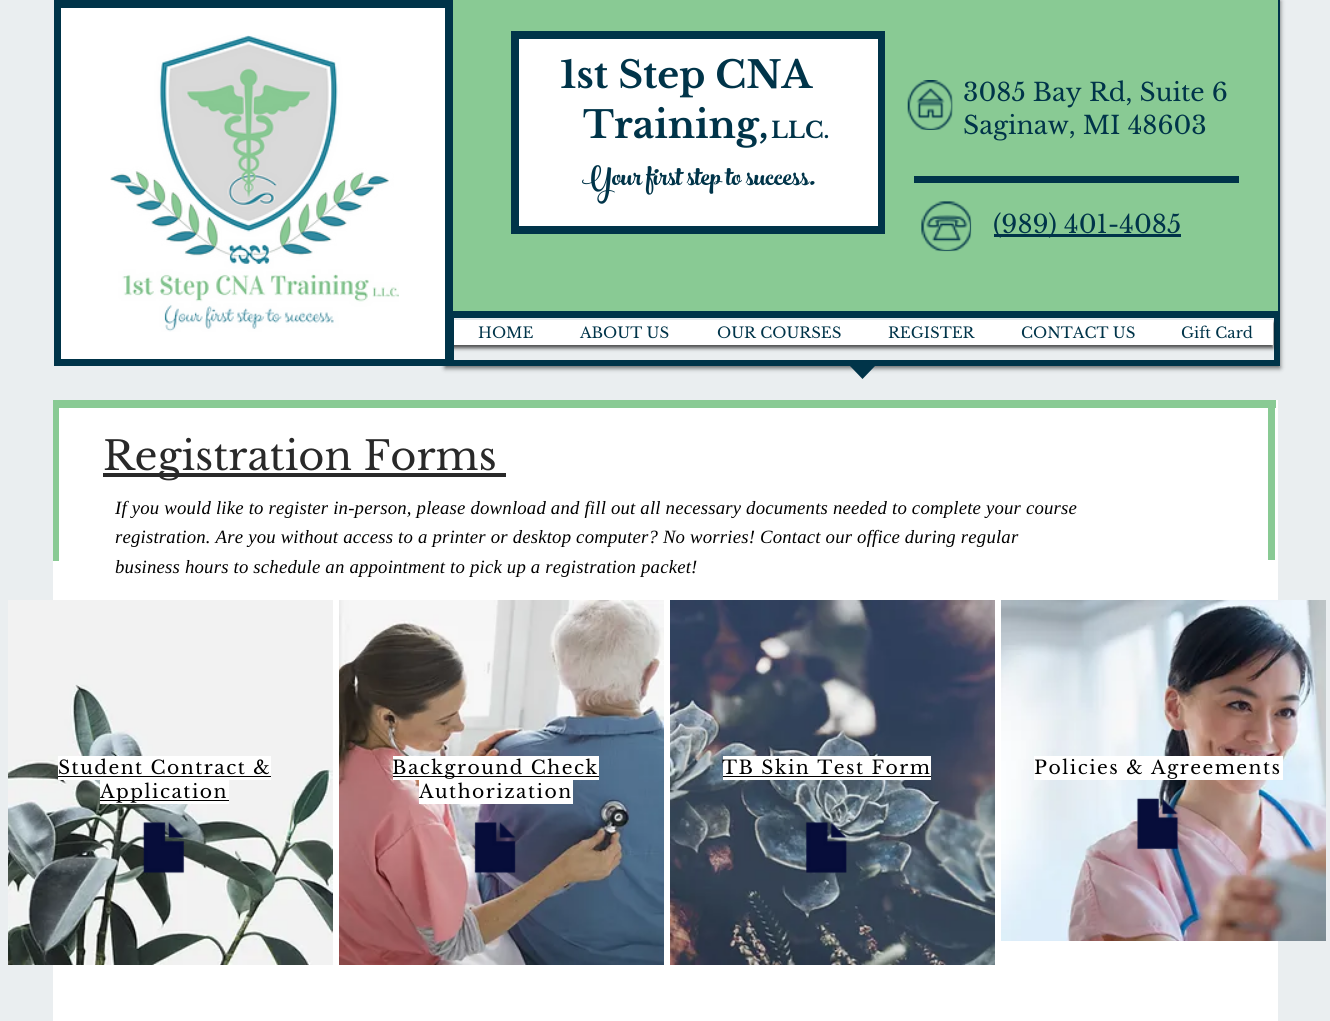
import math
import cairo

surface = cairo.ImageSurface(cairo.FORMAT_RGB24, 1330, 1021)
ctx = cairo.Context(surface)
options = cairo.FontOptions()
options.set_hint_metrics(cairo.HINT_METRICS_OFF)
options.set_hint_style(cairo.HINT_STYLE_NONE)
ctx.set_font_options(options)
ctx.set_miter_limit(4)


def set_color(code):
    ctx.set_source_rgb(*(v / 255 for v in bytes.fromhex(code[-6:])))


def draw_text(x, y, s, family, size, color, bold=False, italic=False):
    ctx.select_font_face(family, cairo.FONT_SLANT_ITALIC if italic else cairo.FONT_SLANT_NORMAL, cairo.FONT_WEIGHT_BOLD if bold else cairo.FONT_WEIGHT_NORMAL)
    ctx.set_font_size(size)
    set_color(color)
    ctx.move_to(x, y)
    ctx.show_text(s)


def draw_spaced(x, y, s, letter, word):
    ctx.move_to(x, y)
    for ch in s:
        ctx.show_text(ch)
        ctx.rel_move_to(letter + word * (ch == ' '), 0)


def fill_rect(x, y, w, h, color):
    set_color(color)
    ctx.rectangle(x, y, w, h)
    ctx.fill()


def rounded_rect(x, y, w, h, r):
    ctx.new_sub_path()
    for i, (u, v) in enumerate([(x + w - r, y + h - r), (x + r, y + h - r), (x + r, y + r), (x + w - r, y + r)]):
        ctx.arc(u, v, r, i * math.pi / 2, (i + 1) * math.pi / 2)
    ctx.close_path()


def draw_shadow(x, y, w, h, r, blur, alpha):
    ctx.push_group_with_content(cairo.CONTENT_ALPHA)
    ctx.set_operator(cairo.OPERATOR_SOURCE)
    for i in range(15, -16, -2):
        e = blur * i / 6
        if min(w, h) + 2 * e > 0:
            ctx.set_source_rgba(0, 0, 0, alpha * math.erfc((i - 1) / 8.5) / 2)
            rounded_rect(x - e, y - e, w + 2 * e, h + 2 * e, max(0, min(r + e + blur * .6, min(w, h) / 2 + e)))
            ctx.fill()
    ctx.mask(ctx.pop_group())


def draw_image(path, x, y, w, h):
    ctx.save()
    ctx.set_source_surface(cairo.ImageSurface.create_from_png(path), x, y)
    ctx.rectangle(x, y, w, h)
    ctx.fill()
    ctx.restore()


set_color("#eaeef0")
ctx.paint()
ctx.save()
ctx.set_fill_rule(cairo.FILL_RULE_EVEN_ODD)
ctx.new_path()
ctx.move_to(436, 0)
ctx.line_to(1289, 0)
ctx.line_to(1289, 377)
ctx.line_to(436, 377)
ctx.close_path()
ctx.move_to(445, 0)
ctx.line_to(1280, 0)
ctx.line_to(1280, 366)
ctx.line_to(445, 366)
ctx.close_path()
ctx.clip()
set_color("#000000")
draw_shadow(445, 1, 835, 367, 0, 2.5, 0.6)
ctx.restore()
ctx.rectangle(448, 3, 829, 360)
set_color("#003449")
ctx.set_line_width(6)
ctx.stroke()
set_color("#000000")
draw_shadow(451, 323, 822, 25, 0, 2, 0.7)
fill_rect(54, 0, 400, 366, "#003449")
fill_rect(61, 8, 384, 351, "#ffffff")
draw_image("assets/img1.png", 110, 35, 289, 297)
fill_rect(453, 0, 825, 311, "#89ca94")
fill_rect(511, 31, 374, 203, "#003449")
fill_rect(519, 39, 359, 187, "#ffffff")
draw_text(560, 88, "1st Step CNA", "Libre Baskerville", 37.5, "#003449", bold=True)
draw_text(583, 138, "Training,", "Libre Baskerville", 37.5, "#003449", bold=True)
draw_text(771, 138, "LLC.", "Libre Baskerville", 22.5, "#003449", bold=True)
draw_text(582, 185, "Your first step to success.", "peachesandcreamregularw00", 40, "#003449")
draw_image("assets/img2.png", 907, 80, 46, 50)
draw_text(963, 101, "3085 Bay Rd, Suite 6", "Libre Baskerville", 25, "#003449")
draw_text(963, 134, "Saginaw, MI 48603", "Libre Baskerville", 25, "#003449")
fill_rect(914, 176, 325, 7, "#003449")
draw_image("assets/img3.png", 921, 201, 51, 51)
fill_rect(994, 234, 187, 3, "#003449")
draw_text(993, 233, "(989) 401-4085", "Libre Baskerville", 25, "#003449")
fill_rect(454, 311, 826, 7, "#003449")
fill_rect(454, 320, 819, 25, "#ffffff")
draw_text(478, 338, "HOME", "Libre Baskerville", 15, "#003449")
draw_text(580, 338, "ABOUT US", "Libre Baskerville", 15, "#003449")
draw_text(717, 338, "OUR COURSES", "Libre Baskerville", 15, "#003449")
draw_text(888, 338, "REGISTER", "Libre Baskerville", 15, "#003449")
draw_text(1021, 338, "CONTACT US", "Libre Baskerville", 15, "#003449")
draw_text(1181, 338, "Gift Card", "Libre Baskerville", 15, "#003449")
ctx.new_path()
ctx.move_to(850, 366)
ctx.line_to(875, 366)
ctx.line_to(862.5, 379)
ctx.close_path()
ctx.fill()
fill_rect(53, 400, 1225, 621, "#ffffff")
fill_rect(53, 400, 1223, 8, "#89ca94")
fill_rect(53, 408, 6, 153, "#89ca94")
fill_rect(103, 473, 403, 4, "#292929")
draw_text(103, 470, "Registration Forms", "Libre Baskerville", 40, "#292929")
fill_rect(1268, 401, 7, 159, "#89ca94")
ctx.select_font_face("Liberation Serif", cairo.FONT_SLANT_ITALIC)
ctx.set_font_size(18.75)
set_color("#000000")
draw_spaced(115, 514, "If you would like to register in-person, please download and fill out all necessary documents needed to complete your course", 0.19, 0)
draw_spaced(115, 543, "registration. Are you without access to a printer or desktop computer? No worries! Contact our office during regular", 0.19, 0)
draw_spaced(115, 573, "business hours to schedule an appointment to pick up a registration packet!", 0.19, 0)
draw_image("assets/img4.png", 8, 600, 325, 365)
fill_rect(58, 756, 213, 24, "#ffffff")
ctx.select_font_face("Libre Baskerville")
set_color("#000000")
draw_spaced(58, 774, "Student Contract &", 1.5, 0)
fill_rect(58, 776, 213, 1, "#000000")
fill_rect(100, 780, 129, 24, "#ffffff")
fill_rect(100, 800, 129, 1, "#000000")
draw_spaced(100, 798, "Application", 1.5, 0)
draw_image("assets/img5.png", 142, 821, 43, 53)
draw_image("assets/img6.png", 339, 600, 325, 365)
fill_rect(393, 756, 206, 24, "#ffffff")
fill_rect(393, 776, 206, 1, "#000000")
draw_spaced(392, 774, "Background Check", 1.5, 0)
fill_rect(419, 780, 154, 24, "#ffffff")
set_color("#000000")
draw_spaced(419, 798, "Authorization", 1.5, 0)
draw_image("assets/img7.png", 474, 821, 42, 53)
draw_image("assets/img8.png", 670, 600, 325, 365)
fill_rect(723, 756, 208, 24, "#ffffff")
set_color("#000000")
draw_spaced(722, 774, "TB Skin Test Form", 1.5, 0)
fill_rect(723, 776, 208, 1, "#000000")
draw_image("assets/img9.png", 805, 821, 42, 52)
draw_image("assets/img10.png", 1001, 600, 325, 341)
fill_rect(1034, 756, 249, 24, "#ffffff")
set_color("#000000")
draw_spaced(1034, 774, "Policies & Agreements", 1.5, 0)
draw_image("assets/img11.png", 1136, 797, 43, 53)
surface.write_to_png("output.png")
